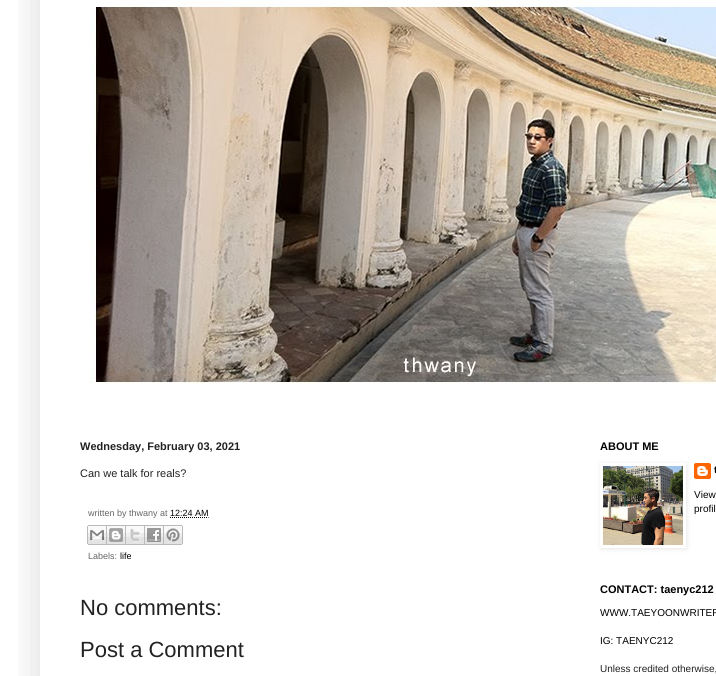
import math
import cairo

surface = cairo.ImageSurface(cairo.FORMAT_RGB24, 716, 676)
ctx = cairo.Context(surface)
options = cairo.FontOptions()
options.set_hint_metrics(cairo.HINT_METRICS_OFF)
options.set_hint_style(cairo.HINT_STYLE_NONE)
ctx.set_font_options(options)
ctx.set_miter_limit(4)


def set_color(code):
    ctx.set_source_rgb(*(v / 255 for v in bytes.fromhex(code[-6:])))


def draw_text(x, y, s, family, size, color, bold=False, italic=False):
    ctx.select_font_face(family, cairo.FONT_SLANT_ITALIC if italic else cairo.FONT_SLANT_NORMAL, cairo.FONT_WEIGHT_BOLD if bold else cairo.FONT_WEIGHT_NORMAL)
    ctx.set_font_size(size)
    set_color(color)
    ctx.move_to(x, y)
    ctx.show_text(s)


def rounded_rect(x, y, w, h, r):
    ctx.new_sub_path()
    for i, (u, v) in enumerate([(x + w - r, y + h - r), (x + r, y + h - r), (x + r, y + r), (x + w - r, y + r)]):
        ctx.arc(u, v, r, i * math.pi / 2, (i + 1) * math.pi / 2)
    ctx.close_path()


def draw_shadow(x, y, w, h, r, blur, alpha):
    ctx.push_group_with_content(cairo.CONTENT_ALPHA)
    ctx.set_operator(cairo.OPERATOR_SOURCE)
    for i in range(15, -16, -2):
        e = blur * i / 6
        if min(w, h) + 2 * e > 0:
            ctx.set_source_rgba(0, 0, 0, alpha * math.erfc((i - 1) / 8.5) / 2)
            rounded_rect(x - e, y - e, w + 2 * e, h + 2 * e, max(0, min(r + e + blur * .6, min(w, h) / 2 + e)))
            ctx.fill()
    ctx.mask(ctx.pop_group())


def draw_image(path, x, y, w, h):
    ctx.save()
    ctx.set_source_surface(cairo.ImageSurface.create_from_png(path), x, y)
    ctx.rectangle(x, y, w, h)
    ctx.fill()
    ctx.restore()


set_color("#ffffff")
ctx.paint()
ctx.save()
ctx.rectangle(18, 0, 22, 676)
ctx.clip()
set_color("#000000")
draw_shadow(40, -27, 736, 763, 0, 20, 0.15)
ctx.restore()
draw_image("assets/img1.png", 90, 0, 626, 384)
draw_text(80, 450, "Wednesday, February 03, 2021", "Liberation Sans", 11, "#222222", bold=True)
draw_text(80, 477, "Can we talk for reals?", "Liberation Sans", 11, "#222222")
draw_text(88, 516, "written by thwany at", "Liberation Sans", 9, "#666666")
draw_text(170, 516, "12:24 AM", "Liberation Sans", 9, "#000000")
ctx.new_path()
ctx.move_to(170, 517.5)
ctx.line_to(208.5, 517.5)
ctx.set_line_width(1)
ctx.set_dash([1, 1])
ctx.stroke()
draw_image("assets/img2.png", 87, 525, 20, 20)
draw_image("assets/img3.png", 107, 525, 19, 20)
draw_image("assets/img4.png", 126, 525, 19, 20)
draw_image("assets/img5.png", 145, 525, 19, 20)
draw_image("assets/img6.png", 164, 525, 19, 20)
draw_text(88, 559, "Labels:", "Liberation Sans", 9, "#666666")
draw_text(120, 559, "life", "Liberation Sans", 9, "#000000")
draw_text(80, 615, "No comments:", "Liberation Sans", 22, "#222222")
draw_text(80, 657, "Post a Comment", "Liberation Sans", 22, "#222222")
draw_text(600, 450, "ABOUT ME", "Liberation Sans", 11, "#000000", bold=True)
draw_image("assets/img8.png", 694, 463, 17, 16)
ctx.save()
ctx.set_fill_rule(cairo.FILL_RULE_EVEN_ODD)
ctx.new_path()
ctx.move_to(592, 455)
ctx.line_to(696, 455)
ctx.line_to(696, 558)
ctx.line_to(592, 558)
ctx.close_path()
ctx.move_to(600, 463)
ctx.line_to(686, 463)
ctx.line_to(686, 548)
ctx.line_to(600, 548)
ctx.close_path()
ctx.clip()
set_color("#000000")
draw_shadow(601, 464, 86, 85, 0, 2.5, 0.1)
ctx.restore()
draw_image("assets/img7.png", 603, 466, 80, 79)
draw_text(714, 473, "t", "Liberation Sans", 10, "#000000", bold=True)
draw_text(694, 498, "View", "Liberation Sans", 10, "#000000")
draw_text(694, 512, "profil", "Liberation Sans", 10, "#000000")
draw_text(600, 593, "CONTACT: taenyc212", "Liberation Sans", 11, "#000000", bold=True)
draw_text(600, 616, "WWW.TAEYOONWRITER", "Liberation Sans", 10, "#000000")
draw_text(600, 644, "IG: TAENYC212", "Liberation Sans", 10, "#000000")
draw_text(600, 672, "Unless credited otherwise,", "Liberation Sans", 10, "#222222")
surface.write_to_png("output.png")
